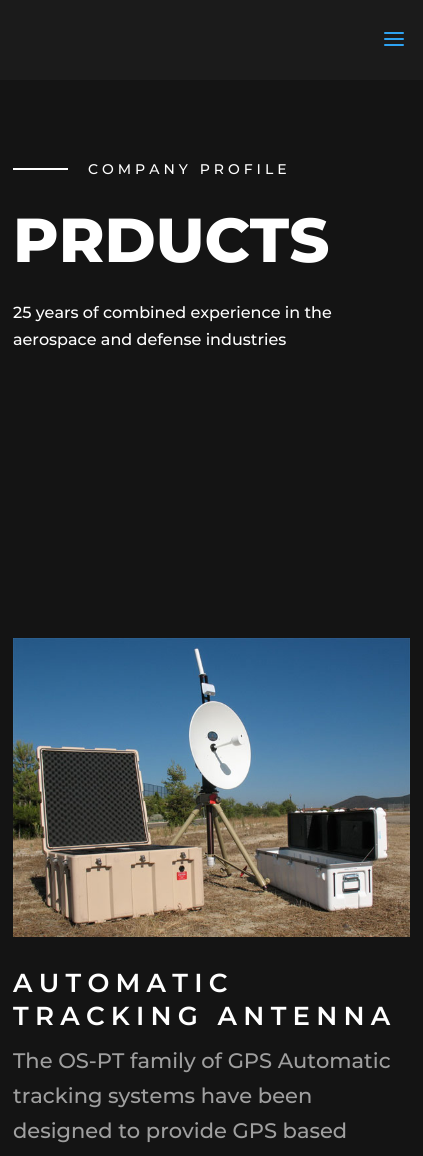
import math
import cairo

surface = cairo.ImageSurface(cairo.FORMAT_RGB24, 423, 1156)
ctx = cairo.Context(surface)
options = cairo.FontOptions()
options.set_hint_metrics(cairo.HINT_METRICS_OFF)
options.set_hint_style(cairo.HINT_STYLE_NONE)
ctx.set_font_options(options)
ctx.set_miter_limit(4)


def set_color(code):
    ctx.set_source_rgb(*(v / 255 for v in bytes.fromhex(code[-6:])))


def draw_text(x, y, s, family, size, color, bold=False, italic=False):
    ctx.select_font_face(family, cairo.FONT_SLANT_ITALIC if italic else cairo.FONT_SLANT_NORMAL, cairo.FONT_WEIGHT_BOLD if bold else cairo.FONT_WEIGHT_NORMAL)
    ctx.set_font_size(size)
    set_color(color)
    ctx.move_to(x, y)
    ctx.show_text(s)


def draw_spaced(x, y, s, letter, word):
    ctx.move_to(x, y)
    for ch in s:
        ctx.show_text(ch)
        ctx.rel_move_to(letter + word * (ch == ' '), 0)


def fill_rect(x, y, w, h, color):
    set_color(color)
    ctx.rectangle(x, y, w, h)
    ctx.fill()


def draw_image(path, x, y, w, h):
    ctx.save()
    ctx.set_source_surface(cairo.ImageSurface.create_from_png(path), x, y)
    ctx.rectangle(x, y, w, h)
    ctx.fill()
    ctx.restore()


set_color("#141414")
ctx.paint()
fill_rect(0, 0, 423, 80, "#1b1b1b")
draw_image("assets/img1.png", 384, 32, 20, 14)
fill_rect(13, 168, 55, 2, "#ffffff")
ctx.select_font_face("Montserrat Medium")
ctx.set_font_size(14)
draw_spaced(88, 174, "COMPANY PROFILE", 4, 0)
draw_text(13, 262, "PRDUCTS", "Montserrat ExtraBold", 62, "#ffffff")
draw_text(13, 318, "25 years of combined experience in the", "Montserrat Medium", 16, "#ffffff")
draw_text(13, 345, "aerospace and defense industries", "Montserrat Medium", 16, "#ffffff")
draw_image("assets/img2.png", 13, 638, 397, 299)
ctx.select_font_face("Montserrat SemiBold")
ctx.set_font_size(26)
draw_spaced(13, 992, "AUTOMATIC", 6.25, 0)
draw_spaced(13, 1025, "TRACKING ANTENNA", 6.25, 0)
draw_text(13, 1068, "The OS-PT family of GPS Automatic", "Montserrat Medium", 21, "#9f9f9f")
draw_text(13, 1103, "tracking systems have been", "Montserrat Medium", 21, "#9f9f9f")
draw_text(13, 1138, "designed to provide GPS based", "Montserrat Medium", 21, "#9f9f9f")
surface.write_to_png("output.png")
